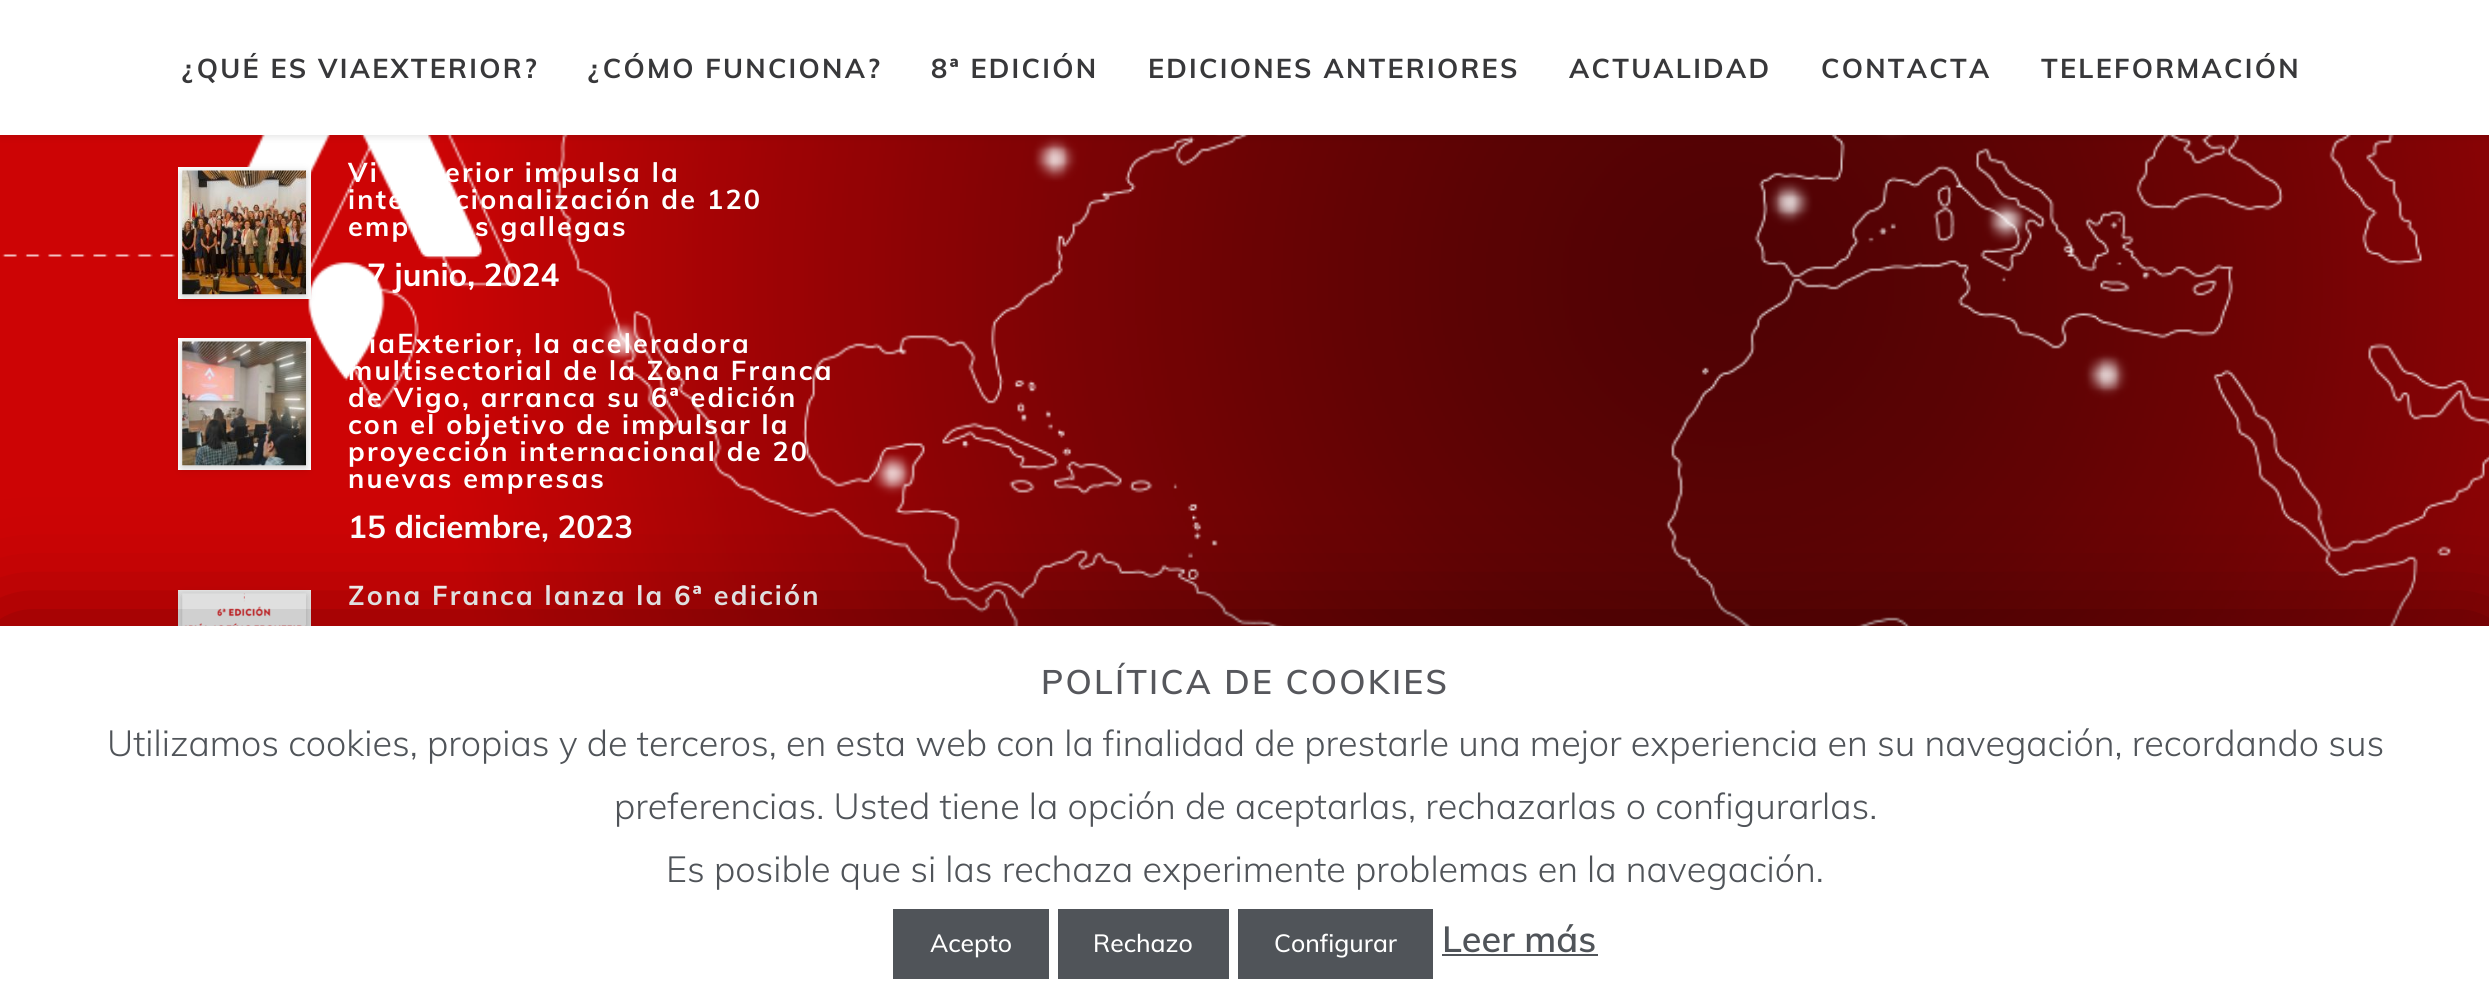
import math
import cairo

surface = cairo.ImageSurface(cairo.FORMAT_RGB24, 2489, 1008)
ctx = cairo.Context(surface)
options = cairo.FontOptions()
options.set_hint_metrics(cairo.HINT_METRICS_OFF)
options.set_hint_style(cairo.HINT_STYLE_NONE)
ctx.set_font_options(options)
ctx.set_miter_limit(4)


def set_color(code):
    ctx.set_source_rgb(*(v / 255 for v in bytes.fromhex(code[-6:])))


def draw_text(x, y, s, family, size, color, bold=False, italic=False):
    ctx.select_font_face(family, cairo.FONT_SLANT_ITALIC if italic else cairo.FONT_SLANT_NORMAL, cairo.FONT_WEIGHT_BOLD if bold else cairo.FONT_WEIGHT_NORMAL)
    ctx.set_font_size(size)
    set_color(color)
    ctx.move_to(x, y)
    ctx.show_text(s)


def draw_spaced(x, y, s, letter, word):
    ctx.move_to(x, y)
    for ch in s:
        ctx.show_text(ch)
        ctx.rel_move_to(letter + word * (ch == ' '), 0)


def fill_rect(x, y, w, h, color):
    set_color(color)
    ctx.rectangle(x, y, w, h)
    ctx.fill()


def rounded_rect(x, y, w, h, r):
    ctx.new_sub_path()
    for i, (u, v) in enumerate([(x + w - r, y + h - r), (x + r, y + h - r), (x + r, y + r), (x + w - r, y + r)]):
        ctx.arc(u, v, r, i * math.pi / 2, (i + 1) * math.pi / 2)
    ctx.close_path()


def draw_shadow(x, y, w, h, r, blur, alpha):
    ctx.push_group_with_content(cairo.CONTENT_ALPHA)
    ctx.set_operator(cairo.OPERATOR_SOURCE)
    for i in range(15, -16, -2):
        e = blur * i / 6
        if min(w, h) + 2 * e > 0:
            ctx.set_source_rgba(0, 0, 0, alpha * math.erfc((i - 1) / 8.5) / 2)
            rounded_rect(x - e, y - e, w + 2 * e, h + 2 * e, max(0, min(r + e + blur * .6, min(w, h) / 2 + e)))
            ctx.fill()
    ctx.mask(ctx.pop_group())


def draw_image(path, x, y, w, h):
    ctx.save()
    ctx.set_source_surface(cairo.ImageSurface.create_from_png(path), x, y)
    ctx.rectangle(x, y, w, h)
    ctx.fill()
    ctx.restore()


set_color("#ffffff")
ctx.paint()
draw_image("assets/img1.png", 0, 135, 2489, 491)
set_color("#000000")
draw_shadow(0, 2, 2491, 135, 0, 3.5, 0.11)
fill_rect(0, 0, 2489, 135, "#ffffff")
ctx.select_font_face("Muli", cairo.FONT_SLANT_NORMAL, cairo.FONT_WEIGHT_BOLD)
ctx.set_font_size(27)
set_color("#38383a")
draw_spaced(182, 78, "¿QUÉ ES VIAEXTERIOR?", 2.25, 0)
draw_spaced(588, 78, "¿CÓMO FUNCIONA?", 2.25, 0)
draw_spaced(931, 78, "8ª EDICIÓN", 2.25, 0)
draw_spaced(1148, 78, "EDICIONES ANTERIORES", 2.25, 0)
draw_spaced(1569, 78, "ACTUALIDAD", 2.25, 0)
draw_spaced(1821, 78, "CONTACTA", 2.25, 0)
draw_spaced(2041, 78, "TELEFORMACIÓN", 2.25, 0)
ctx.rectangle(180.5, 169.5, 128, 127)
set_color("#ffffff")
ctx.set_line_width(5)
ctx.stroke()
set_color("#000000")
draw_shadow(182, 173, 124, 124, 0, 4.5, 0.2)
draw_image("assets/img2.png", 182, 170, 124, 125)
set_color("#ffffff")
draw_spaced(348, 182, "Vi", 2.25, 0)
draw_spaced(445, 182, "erior impulsa la", 2.25, 0)
draw_spaced(348, 209, "inte", 2.25, 0)
draw_spaced(455, 209, "cionalización de 120", 2.25, 0)
draw_spaced(348, 236, "emp", 2.25, 0)
draw_spaced(475, 236, "s gallegas", 2.25, 0)
draw_text(367, 286, "7 junio, 2024", "Muli", 31.5, "#ffffff", bold=True)
ctx.rectangle(180.5, 340.5, 128, 127)
ctx.stroke()
set_color("#000000")
draw_shadow(182, 344, 124, 124, 0, 4.5, 0.2)
draw_image("assets/img3.png", 182, 341, 124, 125)
ctx.set_font_size(27)
set_color("#ffffff")
draw_spaced(369, 353, "iaExterior, la aceleradora", 2.25, 0)
draw_spaced(348, 380, "multisectorial de la Zona Franca", 2.25, 0)
draw_spaced(348, 407, "de Vigo, arranca su 6ª edición", 2.25, 0)
draw_spaced(348, 434, "con el objetivo de impulsar la", 2.25, 0)
draw_spaced(348, 461, "proyección internacional de 20", 2.25, 0)
draw_spaced(348, 488, "nuevas empresas", 2.25, 0)
draw_text(348, 538, "15 diciembre, 2023", "Muli", 31.5, "#ffffff", bold=True)
ctx.rectangle(180.5, 592.5, 128, 127)
ctx.stroke()
set_color("#000000")
draw_shadow(182, 596, 124, 124, 0, 4.5, 0.2)
draw_image("assets/img4.png", 182, 593, 124, 33)
ctx.set_font_size(27)
set_color("#ffffff")
draw_spaced(348, 605, "Zona Franca lanza la 6ª edición", 2.25, 0)
set_color("#000000")
draw_shadow(0, 637, 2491, 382, 0, 56, 0.5)
fill_rect(0, 626, 2489, 382, "#ffffff")
ctx.select_font_face("Muli SemiBold")
ctx.set_font_size(33.75)
set_color("#56575c")
draw_spaced(1041, 694, "POLÍTICA DE COOKIES", 2.25, 0)
draw_text(107, 756, "Utilizamos cookies, propias y de terceros, en esta web con la finalidad de prestarle una mejor experiencia en su navegación, recordando sus", "Muli Light", 36, "#505459")
draw_text(614, 819, "preferencias. Usted tiene la opción de aceptarlas, rechazarlas o configurarlas.", "Muli Light", 36, "#505459")
draw_text(666, 882, "Es posible que si las rechaza experimente problemas en la navegación.", "Muli Light", 36, "#505459")
fill_rect(893, 909, 156, 70, "#505459")
draw_text(930, 952, "Acepto", "Muli Medium", 24.75, "#ffffff")
fill_rect(1058, 909, 171, 70, "#505459")
draw_text(1093, 952, "Rechazo", "Muli Medium", 24.75, "#ffffff")
fill_rect(1238, 909, 195, 70, "#505459")
draw_text(1274, 952, "Configurar", "Muli Medium", 24.75, "#ffffff")
draw_text(1442, 952, "Leer más", "Muli SemiBold", 36, "#505459")
fill_rect(1442, 954, 156, 2, "#505459")
surface.write_to_png("output.png")
